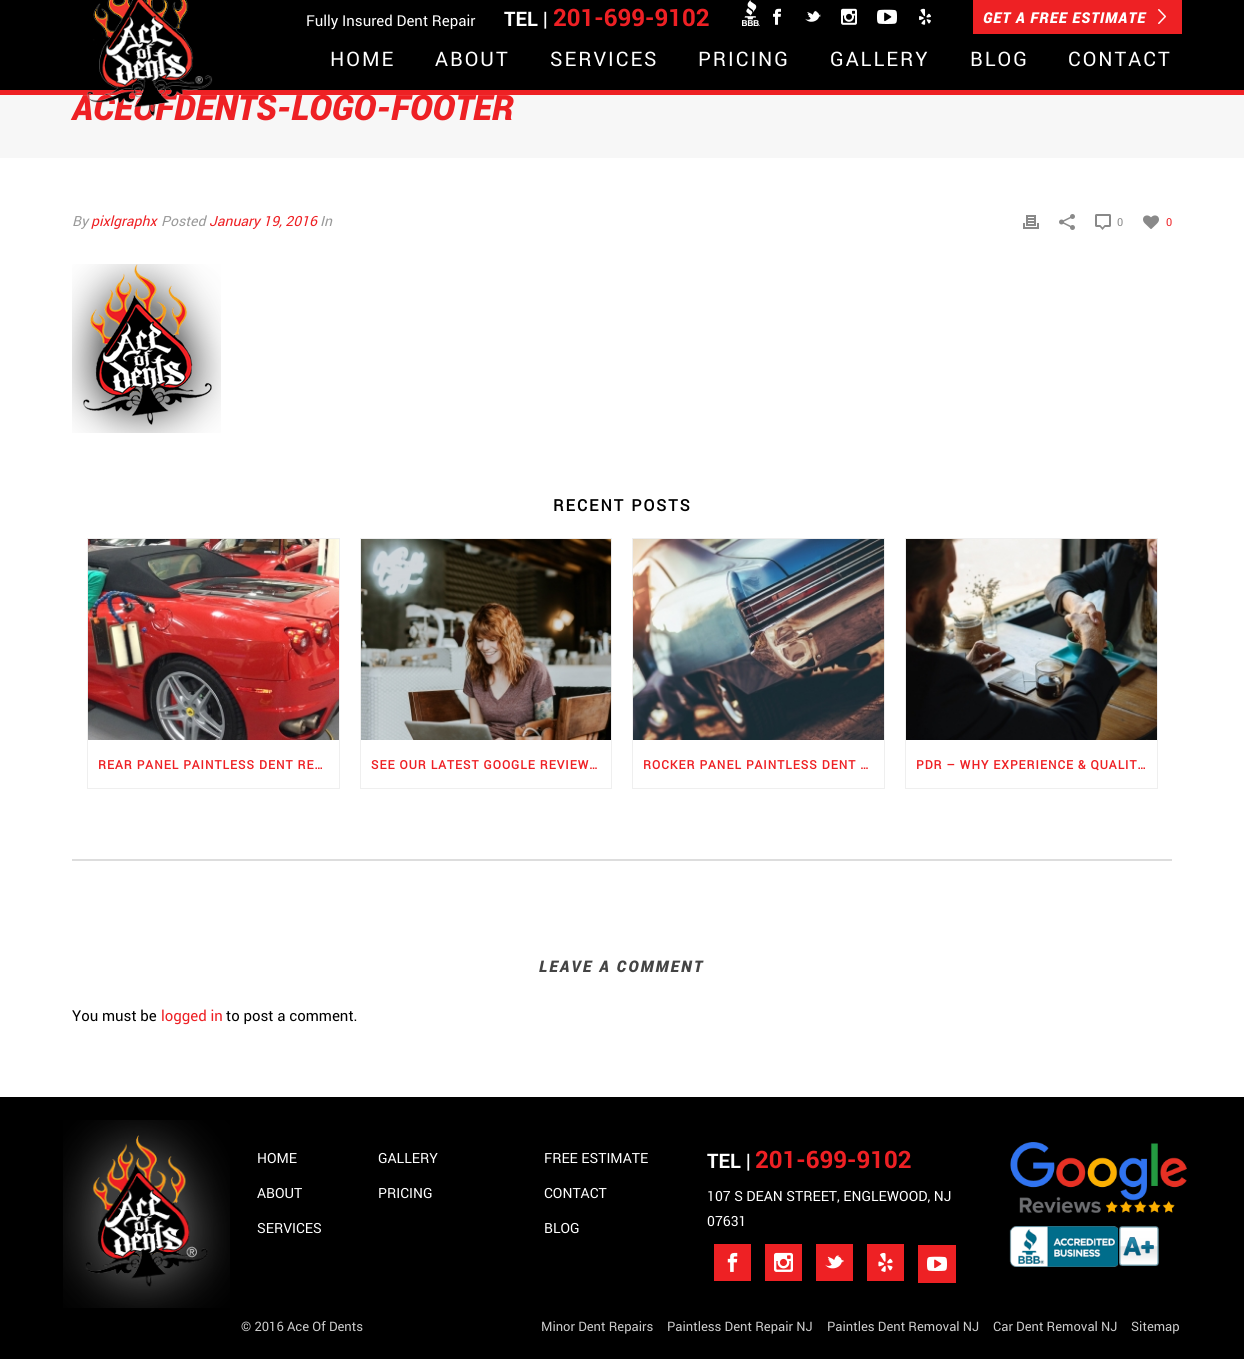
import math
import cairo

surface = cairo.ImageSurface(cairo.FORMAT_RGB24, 1244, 1359)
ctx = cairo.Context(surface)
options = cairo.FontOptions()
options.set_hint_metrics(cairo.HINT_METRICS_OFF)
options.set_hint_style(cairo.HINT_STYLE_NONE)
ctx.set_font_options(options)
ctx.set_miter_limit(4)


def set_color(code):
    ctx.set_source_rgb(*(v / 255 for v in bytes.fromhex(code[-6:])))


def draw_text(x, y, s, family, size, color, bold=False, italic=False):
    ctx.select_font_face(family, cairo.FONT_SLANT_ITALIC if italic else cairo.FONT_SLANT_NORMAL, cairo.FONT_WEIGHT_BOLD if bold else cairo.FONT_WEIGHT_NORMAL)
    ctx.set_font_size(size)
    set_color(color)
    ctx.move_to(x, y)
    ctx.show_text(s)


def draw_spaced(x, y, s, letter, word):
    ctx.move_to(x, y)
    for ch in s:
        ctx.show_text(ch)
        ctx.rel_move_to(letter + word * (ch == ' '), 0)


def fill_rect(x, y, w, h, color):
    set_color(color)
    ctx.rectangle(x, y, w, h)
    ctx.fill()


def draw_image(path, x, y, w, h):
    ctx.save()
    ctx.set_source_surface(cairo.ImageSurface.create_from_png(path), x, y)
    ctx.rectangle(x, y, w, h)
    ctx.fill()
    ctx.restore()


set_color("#ffffff")
ctx.paint()
fill_rect(0, 95, 1244, 63, "#f7f7f7")
draw_text(72, 120, "ACEOFDENTS-LOGO-FOOTER", "Roboto Black", 35, "#ee2024", italic=True)
fill_rect(0, 90, 1244, 5, "#ee2124")
fill_rect(0, 0, 1244, 90, "#000000")
draw_image("assets/img1.png", 87, 0, 126, 117)
draw_text(306, 26, "Fully Insured Dent Repair", "roboto", 15, "#ffffff")
draw_text(504, 26, "TEL |", "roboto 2", 20, "#ffffff", bold=True)
draw_text(553, 26, "201-699-9102", "roboto 2", 24, "#ee2024", bold=True)
draw_image("assets/img2.png", 742, 0, 18, 26)
draw_image("assets/img3.png", 773, 8, 8, 17)
draw_image("assets/img4.png", 805, 10, 16, 12)
draw_image("assets/img5.png", 841, 8, 16, 17)
draw_image("assets/img6.png", 877, 9, 20, 15)
draw_image("assets/img7.png", 919, 8, 12, 17)
fill_rect(973, 0, 209, 34, "#ee2124")
ctx.select_font_face("Roboto Black", cairo.FONT_SLANT_ITALIC)
ctx.set_font_size(15)
set_color("#ffffff")
draw_spaced(983, 23, "GET A FREE ESTIMATE", 1, 0)
draw_image("assets/img8.png", 1158, 9, 8, 15)
ctx.select_font_face("roboto")
ctx.set_font_size(20)
draw_spaced(330, 66, "HOME", 2, 0)
draw_spaced(435, 66, "ABOUT", 2, 0)
draw_spaced(550, 66, "SERVICES", 2, 0)
draw_spaced(698, 66, "PRICING", 2, 0)
draw_spaced(830, 66, "GALLERY", 2, 0)
draw_spaced(970, 66, "BLOG", 2, 0)
draw_spaced(1068, 66, "CONTACT", 2, 0)
draw_text(72, 226, "By", "roboto", 14, "#999999", italic=True)
draw_text(91, 226, "pixlgraphx", "roboto", 14, "#ee2024", italic=True)
draw_text(161, 226, "Posted", "roboto", 14, "#999999", italic=True)
draw_text(209, 226, "January 19, 2016", "roboto", 14, "#ee2024", italic=True)
draw_text(320, 226, "In", "roboto", 14, "#999999", italic=True)
draw_image("assets/img9.png", 1023, 215, 16, 14)
draw_image("assets/img10.png", 1059, 214, 16, 16)
draw_image("assets/img11.png", 1095, 214, 16, 16)
draw_text(1117, 226, "0", "roboto", 11, "#898989")
draw_image("assets/img12.png", 1143, 215, 16, 14)
draw_text(1166, 226, "0", "roboto", 11, "#ee2024")
draw_image("assets/img13.png", 72, 264, 149, 169)
ctx.select_font_face("roboto", cairo.FONT_SLANT_NORMAL, cairo.FONT_WEIGHT_BOLD)
ctx.set_font_size(16)
set_color("#000000")
draw_spaced(553, 511, "RECENT POSTS", 2, 0)
ctx.rectangle(87.5, 538.5, 252, 250)
set_color("#efefef")
ctx.set_line_width(1)
ctx.stroke()
draw_image("assets/img14.png", 88, 539, 251, 201)
ctx.set_font_size(12)
set_color("#ee2024")
draw_spaced(98, 769, "REAR PANEL PAINTLESS DENT RE…", 1, 0)
ctx.rectangle(360.5, 538.5, 251, 250)
set_color("#efefef")
ctx.stroke()
draw_image("assets/img15.png", 361, 539, 250, 201)
set_color("#ee2024")
draw_spaced(371, 769, "SEE OUR LATEST GOOGLE REVIEW…", 1, 0)
ctx.rectangle(632.5, 538.5, 252, 250)
set_color("#efefef")
ctx.stroke()
draw_image("assets/img16.png", 633, 539, 251, 201)
set_color("#ee2024")
draw_spaced(643, 769, "ROCKER PANEL PAINTLESS DENT …", 1, 0)
ctx.rectangle(905.5, 538.5, 252, 250)
set_color("#efefef")
ctx.stroke()
draw_image("assets/img17.png", 906, 539, 251, 201)
set_color("#ee2024")
draw_spaced(916, 769, "PDR – WHY EXPERIENCE & QUALIT…", 1, 0)
fill_rect(72, 859, 1100, 2, "#dddddd")
ctx.select_font_face("Roboto Black", cairo.FONT_SLANT_ITALIC)
ctx.set_font_size(16)
set_color("#444444")
draw_spaced(539, 972, "LEAVE A COMMENT", 2, 0)
draw_text(72, 1021, "You must be", "roboto", 15, "#000000")
draw_text(161, 1021, "logged in", "roboto", 15, "#ee2024")
draw_text(226, 1021, "to post a comment.", "roboto", 15, "#000000")
fill_rect(0, 1097, 1244, 262, "#000000")
draw_image("assets/img18.png", 63, 1120, 167, 188)
draw_text(257, 1163, "HOME", "roboto", 14, "#ffffff")
draw_text(257, 1198, "ABOUT", "roboto", 14, "#ffffff")
draw_text(257, 1233, "SERVICES", "roboto", 14, "#ffffff")
draw_text(378, 1163, "GALLERY", "roboto", 14, "#ffffff")
draw_text(378, 1198, "PRICING", "roboto", 14, "#ffffff")
draw_text(544, 1163, "FREE ESTIMATE", "roboto", 14, "#ffffff")
draw_text(544, 1198, "CONTACT", "roboto", 14, "#ffffff")
draw_text(544, 1233, "BLOG", "roboto", 14, "#ffffff")
draw_text(707, 1168, "TEL |", "roboto 2", 20, "#ffffff", bold=True)
draw_text(755, 1168, "201-699-9102", "roboto 2", 24, "#ee2024", bold=True)
draw_text(707, 1201, "107 S DEAN STREET, ENGLEWOOD, NJ", "roboto", 14, "#ffffff")
draw_text(707, 1226, "07631", "roboto", 14, "#ffffff")
fill_rect(714, 1244, 37, 37, "#ee2124")
draw_image("assets/img19.png", 727, 1252, 11, 20)
fill_rect(765, 1244, 37, 37, "#ee2124")
draw_image("assets/img20.png", 774, 1252, 19, 20)
fill_rect(816, 1244, 37, 37, "#ee2124")
draw_image("assets/img21.png", 825, 1255, 19, 14)
fill_rect(867, 1244, 37, 37, "#ee2124")
draw_image("assets/img22.png", 878, 1252, 15, 20)
fill_rect(918, 1245, 38, 38, "#ee2124")
draw_image("assets/img23.png", 927, 1256, 20, 15)
draw_image("assets/img24.png", 1010, 1142, 177, 71)
draw_image("assets/img25.png", 1009, 1226, 109, 41)
draw_image("assets/img26.png", 1119, 1226, 40, 40)
draw_text(241, 1331, "© 2016 Ace Of Dents", "roboto", 13, "#cccccc")
draw_text(541, 1331, "Minor Dent Repairs", "roboto", 13, "#cccccc")
draw_text(667, 1331, "Paintless Dent Repair NJ", "roboto", 13, "#cccccc")
draw_text(827, 1331, "Paintles Dent Removal NJ", "roboto", 13, "#cccccc")
draw_text(993, 1331, "Car Dent Removal NJ", "roboto", 13, "#cccccc")
draw_text(1131, 1331, "Sitemap", "roboto", 13, "#cccccc")
surface.write_to_png("output.png")
